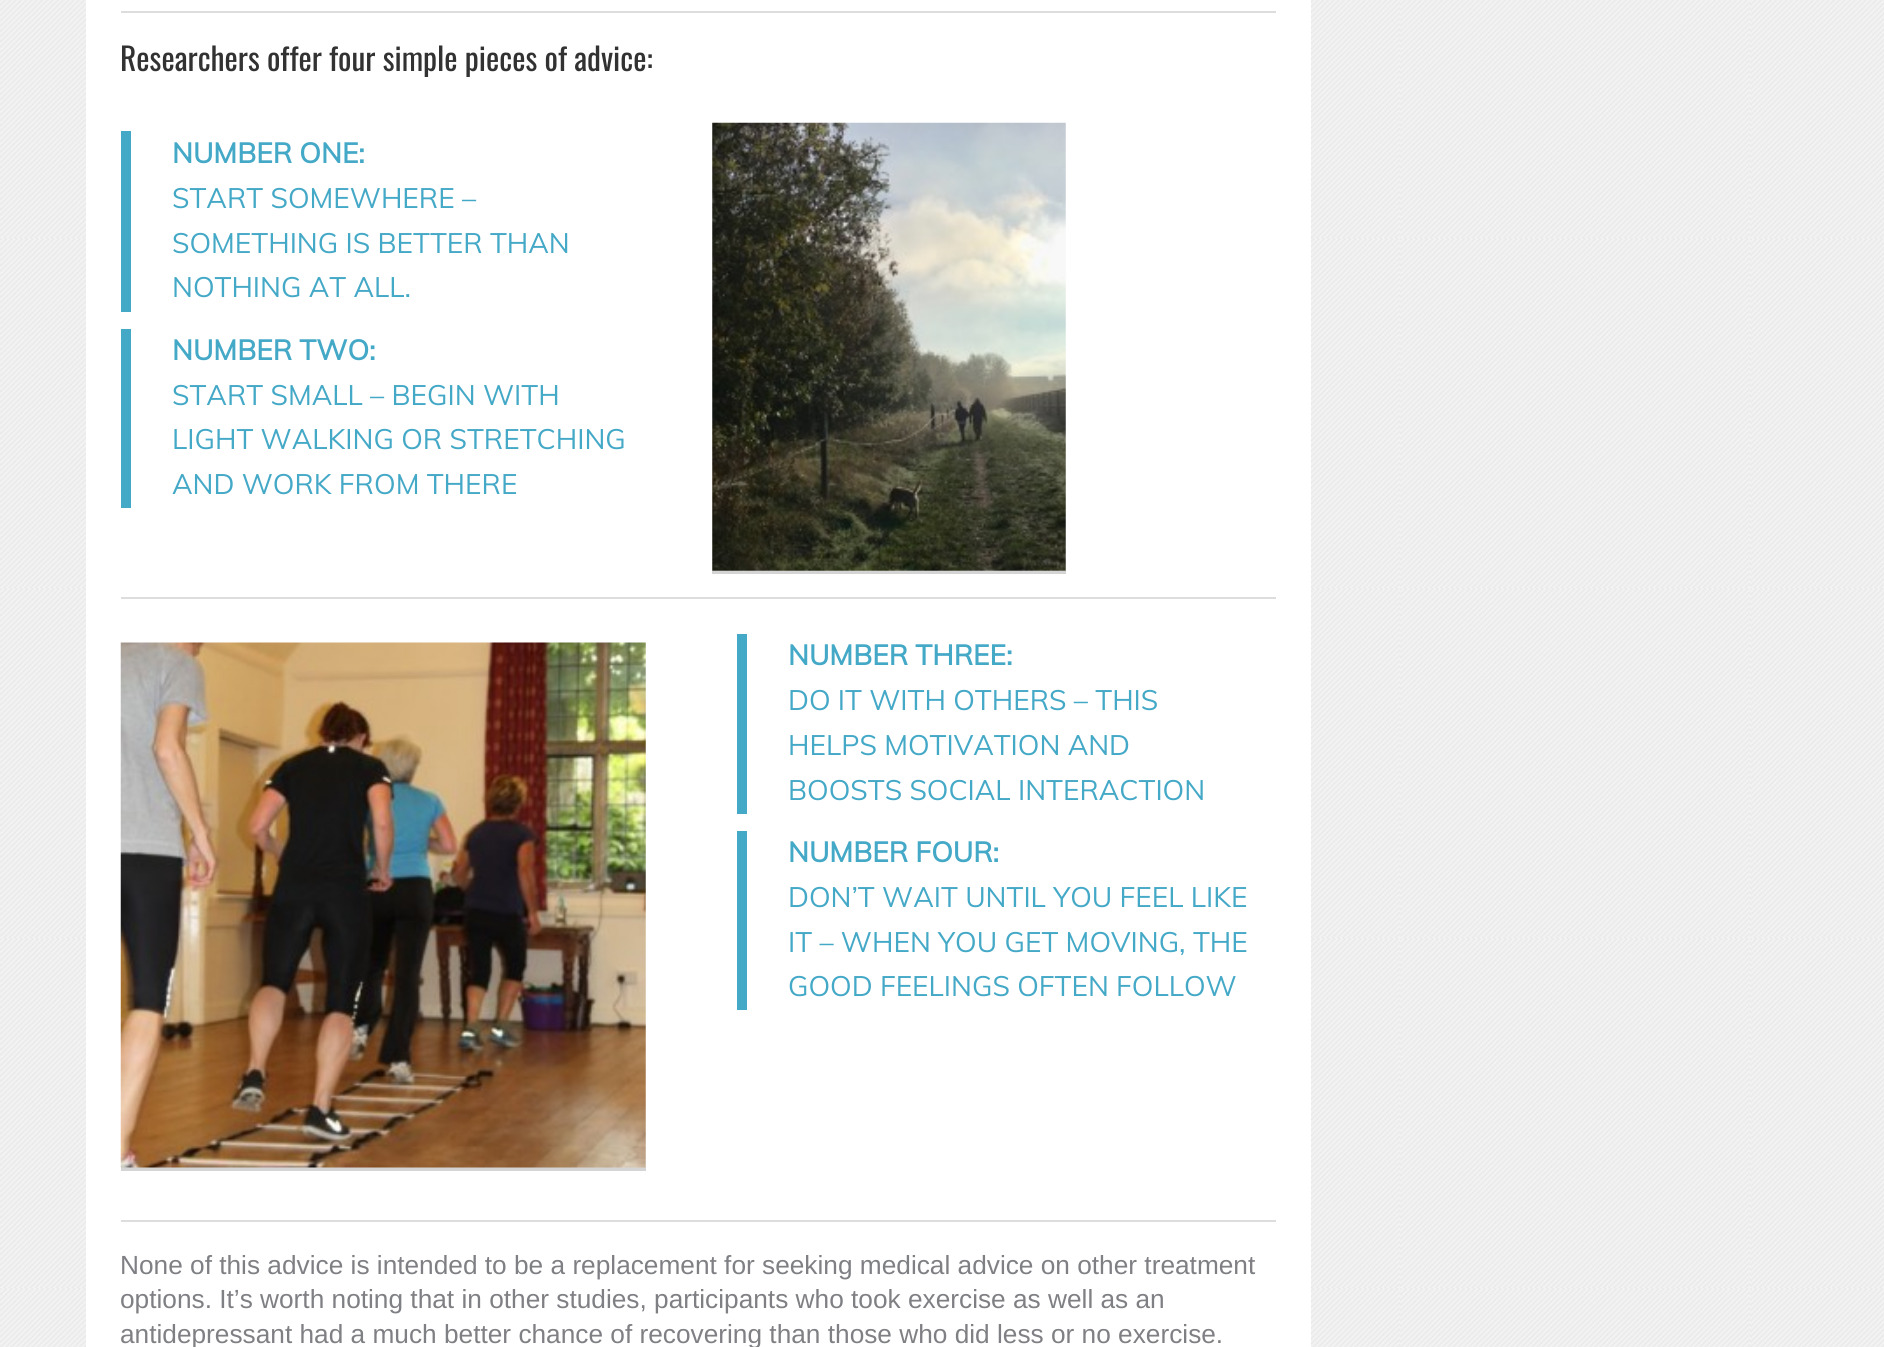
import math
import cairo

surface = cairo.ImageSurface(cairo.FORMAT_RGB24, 1884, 1347)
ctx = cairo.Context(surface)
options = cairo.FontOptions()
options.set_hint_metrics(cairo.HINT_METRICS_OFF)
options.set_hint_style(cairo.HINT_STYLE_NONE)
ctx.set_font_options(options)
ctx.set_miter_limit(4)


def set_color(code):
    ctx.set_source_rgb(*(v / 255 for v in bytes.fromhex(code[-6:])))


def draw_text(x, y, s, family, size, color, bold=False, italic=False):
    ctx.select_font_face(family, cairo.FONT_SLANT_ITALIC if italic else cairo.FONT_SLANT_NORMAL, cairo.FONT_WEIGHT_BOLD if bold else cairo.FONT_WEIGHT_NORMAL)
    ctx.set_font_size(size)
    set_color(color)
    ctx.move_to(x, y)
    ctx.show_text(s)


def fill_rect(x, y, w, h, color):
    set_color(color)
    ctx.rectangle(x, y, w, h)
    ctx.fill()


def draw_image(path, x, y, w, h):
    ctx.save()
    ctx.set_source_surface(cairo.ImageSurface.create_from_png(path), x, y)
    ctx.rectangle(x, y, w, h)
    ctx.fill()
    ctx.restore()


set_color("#ffffff")
ctx.paint()
draw_image("assets/img1.png", 0, 0, 1884, 1347)
fill_rect(86, 0, 1225, 1347, "#ffffff")
fill_rect(121, 11, 1155, 2, "#dddddd")
draw_text(120, 71, "Researchers offer four simple pieces of advice:", "Oswald", 31.5, "#323232")
fill_rect(121, 131, 10, 181, "#44a8c7")
draw_text(172, 163, "NUMBER ONE:", "Muli", 28, "#44a8c7", bold=True)
draw_text(172, 208, "START SOMEWHERE –", "Muli", 28, "#44a8c7")
draw_text(172, 253, "SOMETHING IS BETTER THAN", "Muli", 28, "#44a8c7")
draw_text(172, 297, "NOTHING AT ALL.", "Muli", 28, "#44a8c7")
set_color("#d4d4d4")
ctx.new_path()
ctx.move_to(712, 126)
ctx.line_to(712, 574)
ctx.line_to(1066, 574)
ctx.line_to(1066, 126)
ctx.line_to(1066, 570)
ctx.line_to(712, 570)
ctx.close_path()
ctx.fill()
fill_rect(712, 570, 354, 1, "#ffffff")
draw_image("assets/img2.png", 712, 122, 354, 449)
fill_rect(121, 329, 10, 179, "#44a8c7")
draw_text(172, 360, "NUMBER TWO:", "Muli", 28, "#44a8c7", bold=True)
draw_text(172, 405, "START SMALL – BEGIN WITH", "Muli", 28, "#44a8c7")
draw_text(172, 449, "LIGHT WALKING OR STRETCHING", "Muli", 28, "#44a8c7")
draw_text(172, 494, "AND WORK FROM THERE", "Muli", 28, "#44a8c7")
fill_rect(121, 597, 1155, 2, "#dddddd")
set_color("#d4d4d4")
ctx.new_path()
ctx.move_to(121, 1167)
ctx.line_to(121, 1171)
ctx.line_to(646, 1171)
ctx.line_to(646, 646)
ctx.line_to(646, 1167)
ctx.close_path()
ctx.fill()
draw_image("assets/img3.png", 120, 642, 526, 526)
fill_rect(737, 634, 10, 180, "#44a8c7")
draw_text(788, 665, "NUMBER THREE:", "Muli", 28, "#44a8c7", bold=True)
draw_text(788, 710, "DO IT WITH OTHERS – THIS", "Muli", 28, "#44a8c7")
draw_text(788, 755, "HELPS MOTIVATION AND", "Muli", 28, "#44a8c7")
draw_text(788, 800, "BOOSTS SOCIAL INTERACTION", "Muli", 28, "#44a8c7")
fill_rect(737, 831, 10, 179, "#44a8c7")
draw_text(788, 862, "NUMBER FOUR:", "Muli", 28, "#44a8c7", bold=True)
draw_text(788, 907, "DON’T WAIT UNTIL YOU FEEL LIKE", "Muli", 28, "#44a8c7")
draw_text(788, 952, "IT – WHEN YOU GET MOVING, THE", "Muli", 28, "#44a8c7")
draw_text(788, 996, "GOOD FEELINGS OFTEN FOLLOW", "Muli", 28, "#44a8c7")
fill_rect(121, 1220, 1155, 2, "#dddddd")
draw_text(120, 1274, "None of this advice is intended to be a replacement for seeking medical advice on other treatment", "Liberation Sans", 26.25, "#7f8084")
draw_text(120, 1308, "options. It’s worth noting that in other studies, participants who took exercise as well as an", "Liberation Sans", 26.25, "#7f8084")
draw_text(120, 1343, "antidepressant had a much better chance of recovering than those who did less or no exercise.", "Liberation Sans", 26.25, "#7f8084")
surface.write_to_png("output.png")
